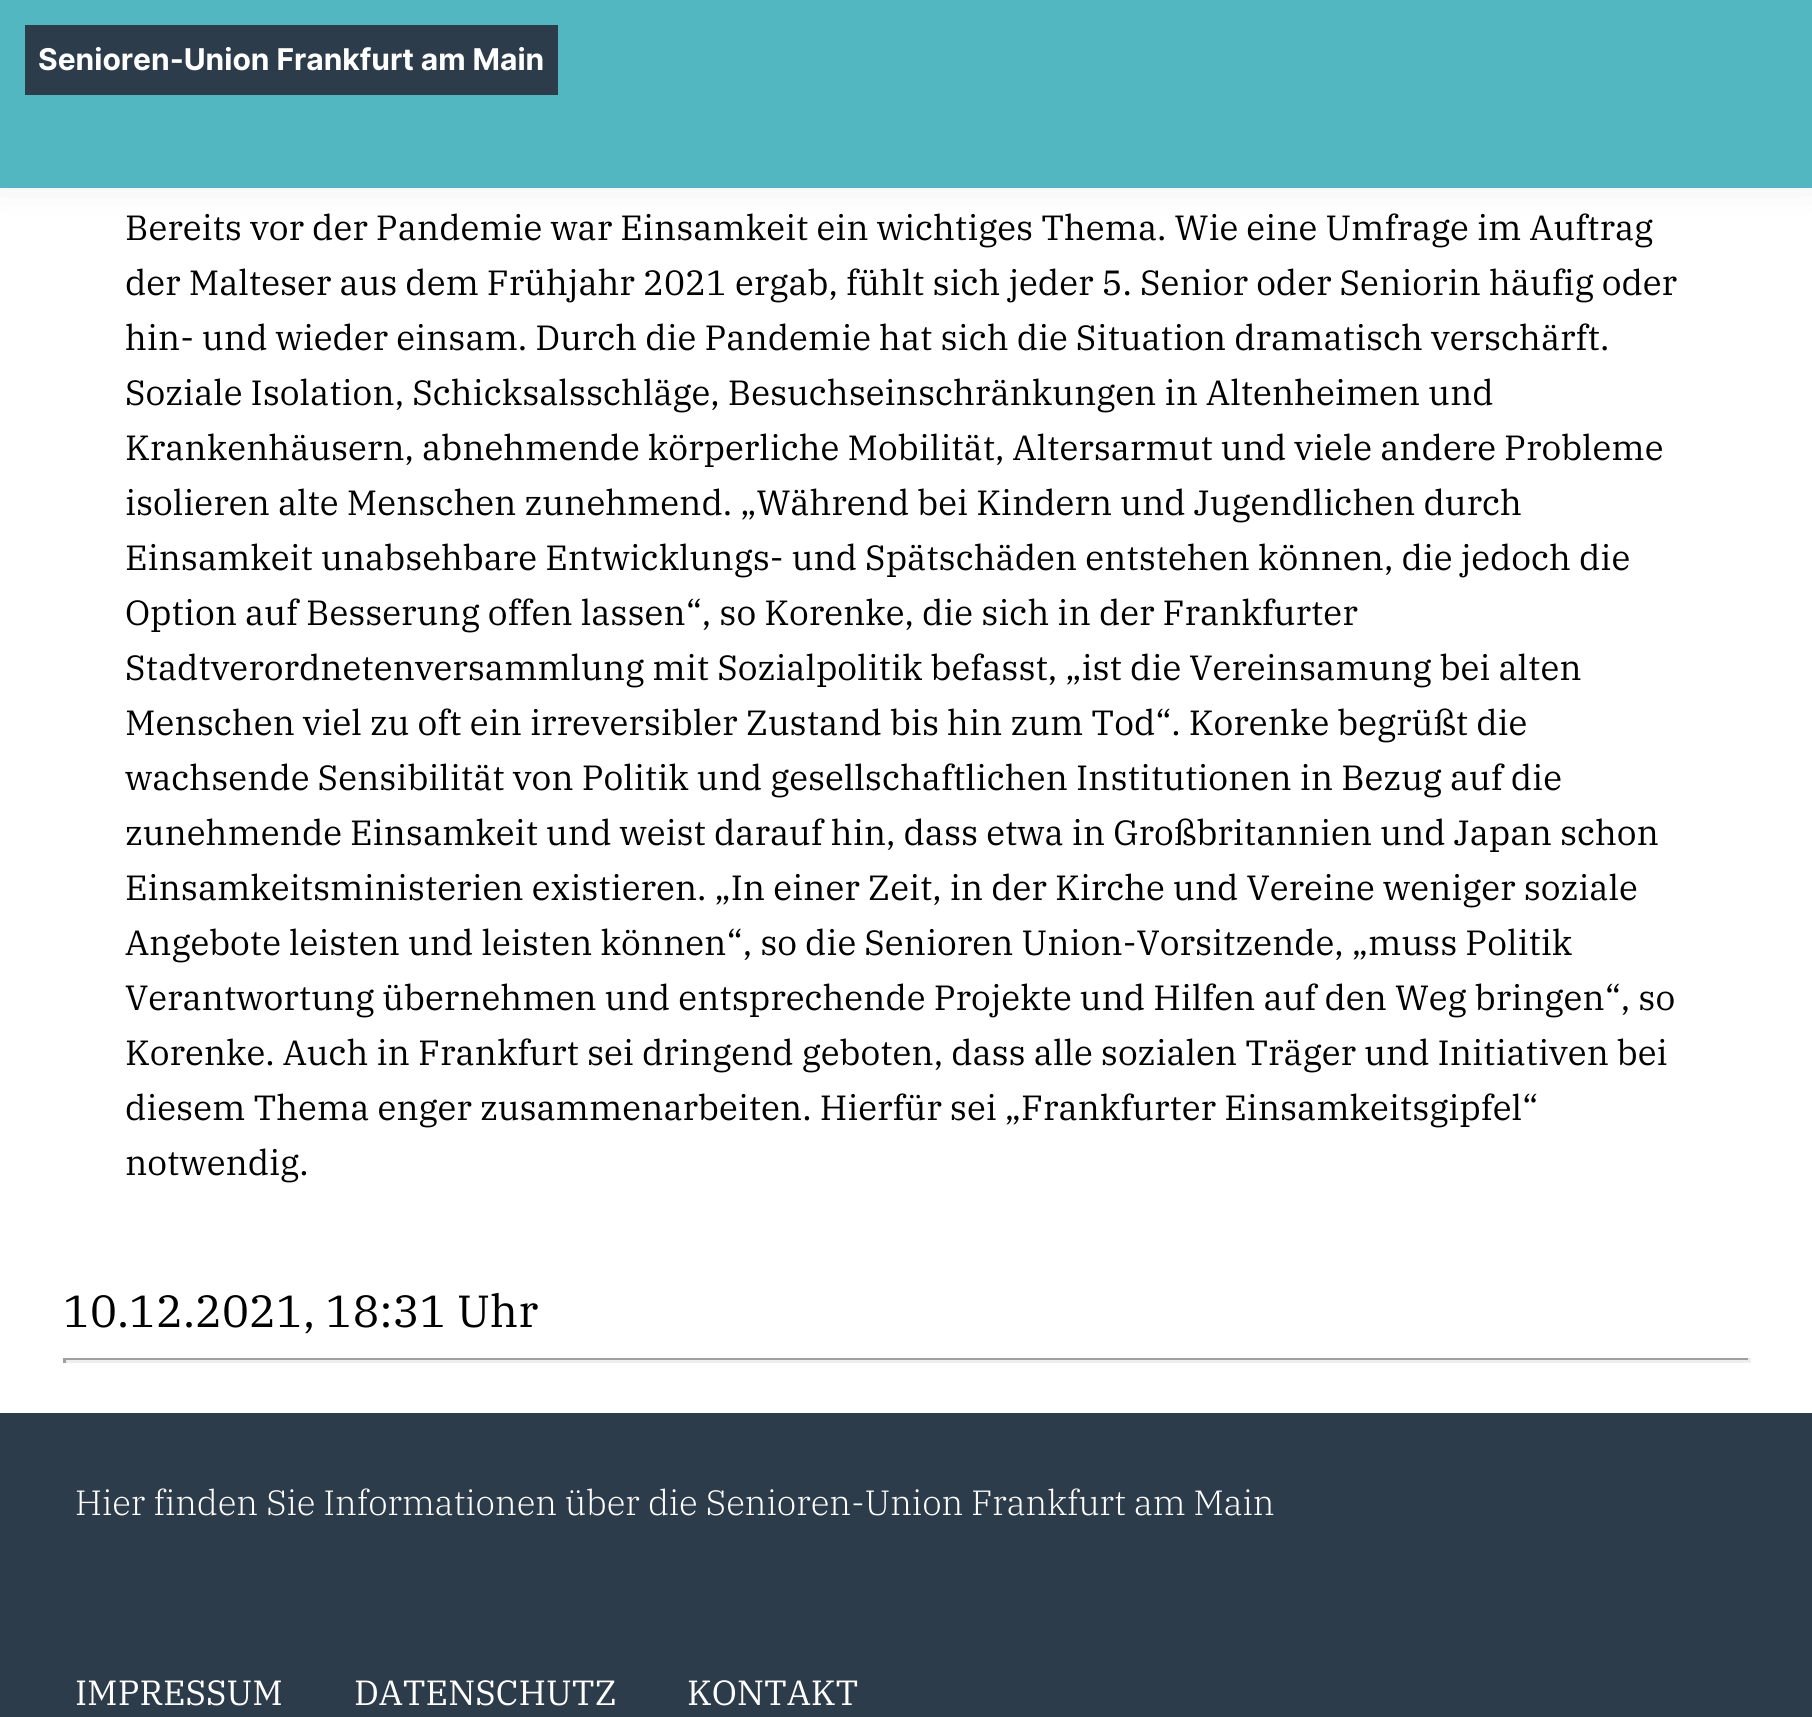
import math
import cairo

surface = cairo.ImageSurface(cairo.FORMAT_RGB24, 1812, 1717)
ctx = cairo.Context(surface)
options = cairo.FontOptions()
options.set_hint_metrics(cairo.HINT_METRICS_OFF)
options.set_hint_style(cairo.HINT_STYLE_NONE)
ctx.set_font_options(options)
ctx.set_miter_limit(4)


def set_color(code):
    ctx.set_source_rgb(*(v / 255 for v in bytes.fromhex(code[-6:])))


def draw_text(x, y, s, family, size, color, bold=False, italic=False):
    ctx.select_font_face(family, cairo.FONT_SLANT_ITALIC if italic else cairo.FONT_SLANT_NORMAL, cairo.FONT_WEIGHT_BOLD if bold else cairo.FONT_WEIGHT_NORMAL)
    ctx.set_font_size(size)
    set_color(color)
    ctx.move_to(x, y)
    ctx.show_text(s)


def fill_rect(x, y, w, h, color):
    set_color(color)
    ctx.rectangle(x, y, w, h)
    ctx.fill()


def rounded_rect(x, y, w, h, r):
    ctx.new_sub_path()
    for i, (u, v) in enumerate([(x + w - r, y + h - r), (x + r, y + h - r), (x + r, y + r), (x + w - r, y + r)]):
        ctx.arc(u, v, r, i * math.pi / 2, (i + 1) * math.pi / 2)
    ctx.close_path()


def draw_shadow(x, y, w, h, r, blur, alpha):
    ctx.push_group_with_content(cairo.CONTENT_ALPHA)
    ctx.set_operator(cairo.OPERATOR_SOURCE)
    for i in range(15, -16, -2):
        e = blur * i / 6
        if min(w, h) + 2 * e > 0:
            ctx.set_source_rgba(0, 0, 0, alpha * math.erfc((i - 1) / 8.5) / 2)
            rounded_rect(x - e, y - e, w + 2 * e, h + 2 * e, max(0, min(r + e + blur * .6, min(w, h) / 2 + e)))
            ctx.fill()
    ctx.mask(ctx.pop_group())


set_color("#ffffff")
ctx.paint()
set_color("#000000")
draw_shadow(0, 5, 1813, 163, 0, 26, 0.15)
fill_rect(0, 0, 1812, 188, "#52b7c1")
fill_rect(25, 25, 533, 70, "#2d3c4b")
draw_text(38, 70, "Senioren-Union Frankfurt am Main", "Inter", 30, "#ffffff", bold=True)
draw_text(125, 240, "Bereits vor der Pandemie war Einsamkeit ein wichtiges Thema. Wie eine Umfrage im Auftrag", "IBM Plex Serif", 35, "#000000")
draw_text(125, 295, "der Malteser aus dem Frühjahr 2021 ergab, fühlt sich jeder 5. Senior oder Seniorin häufig oder", "IBM Plex Serif", 35, "#000000")
draw_text(125, 350, "hin- und wieder einsam. Durch die Pandemie hat sich die Situation dramatisch verschärft.", "IBM Plex Serif", 35, "#000000")
draw_text(125, 405, "Soziale Isolation, Schicksalsschläge, Besuchseinschränkungen in Altenheimen und", "IBM Plex Serif", 35, "#000000")
draw_text(125, 460, "Krankenhäusern, abnehmende körperliche Mobilität, Altersarmut und viele andere Probleme", "IBM Plex Serif", 35, "#000000")
draw_text(125, 515, "isolieren alte Menschen zunehmend. „Während bei Kindern und Jugendlichen durch", "IBM Plex Serif", 35, "#000000")
draw_text(125, 570, "Einsamkeit unabsehbare Entwicklungs- und Spätschäden entstehen können, die jedoch die", "IBM Plex Serif", 35, "#000000")
draw_text(125, 625, "Option auf Besserung offen lassen“, so Korenke, die sich in der Frankfurter", "IBM Plex Serif", 35, "#000000")
draw_text(125, 680, "Stadtverordnetenversammlung mit Sozialpolitik befasst, „ist die Vereinsamung bei alten", "IBM Plex Serif", 35, "#000000")
draw_text(125, 735, "Menschen viel zu oft ein irreversibler Zustand bis hin zum Tod“. Korenke begrüßt die", "IBM Plex Serif", 35, "#000000")
draw_text(125, 790, "wachsende Sensibilität von Politik und gesellschaftlichen Institutionen in Bezug auf die", "IBM Plex Serif", 35, "#000000")
draw_text(125, 845, "zunehmende Einsamkeit und weist darauf hin, dass etwa in Großbritannien und Japan schon", "IBM Plex Serif", 35, "#000000")
draw_text(125, 900, "Einsamkeitsministerien existieren. „In einer Zeit, in der Kirche und Vereine weniger soziale", "IBM Plex Serif", 35, "#000000")
draw_text(125, 955, "Angebote leisten und leisten können“, so die Senioren Union-Vorsitzende, „muss Politik", "IBM Plex Serif", 35, "#000000")
draw_text(125, 1010, "Verantwortung übernehmen und entsprechende Projekte und Hilfen auf den Weg bringen“, so", "IBM Plex Serif", 35, "#000000")
draw_text(125, 1065, "Korenke. Auch in Frankfurt sei dringend geboten, dass alle sozialen Träger und Initiativen bei", "IBM Plex Serif", 35, "#000000")
draw_text(125, 1120, "diesem Thema enger zusammenarbeiten. Hierfür sei „Frankfurter Einsamkeitsgipfel“", "IBM Plex Serif", 35, "#000000")
draw_text(125, 1175, "notwendig.", "IBM Plex Serif", 35, "#000000")
draw_text(63, 1327, "10.12.2021, 18:31 Uhr", "IBM Plex Serif", 45, "#000000")
fill_rect(63, 1358, 1687, 2, "#9f9f9f")
fill_rect(1748, 1358, 3, 5, "#eeeeee")
fill_rect(63, 1360, 1687, 3, "#eeeeee")
fill_rect(63, 1358, 3, 5, "#9f9f9f")
fill_rect(0, 1413, 1812, 304, "#2d3c4b")
draw_text(75, 1515, "Hier finden Sie Informationen über die Senioren-Union Frankfurt am Main", "IBM Plex Serif Light", 35, "#ffffff")
draw_text(75, 1705, "IMPRESSUM", "IBM Plex Serif", 35, "#ffffff")
draw_text(354, 1705, "DATENSCHUTZ", "IBM Plex Serif", 35, "#ffffff")
draw_text(687, 1705, "KONTAKT", "IBM Plex Serif", 35, "#ffffff")
surface.write_to_png("output.png")
